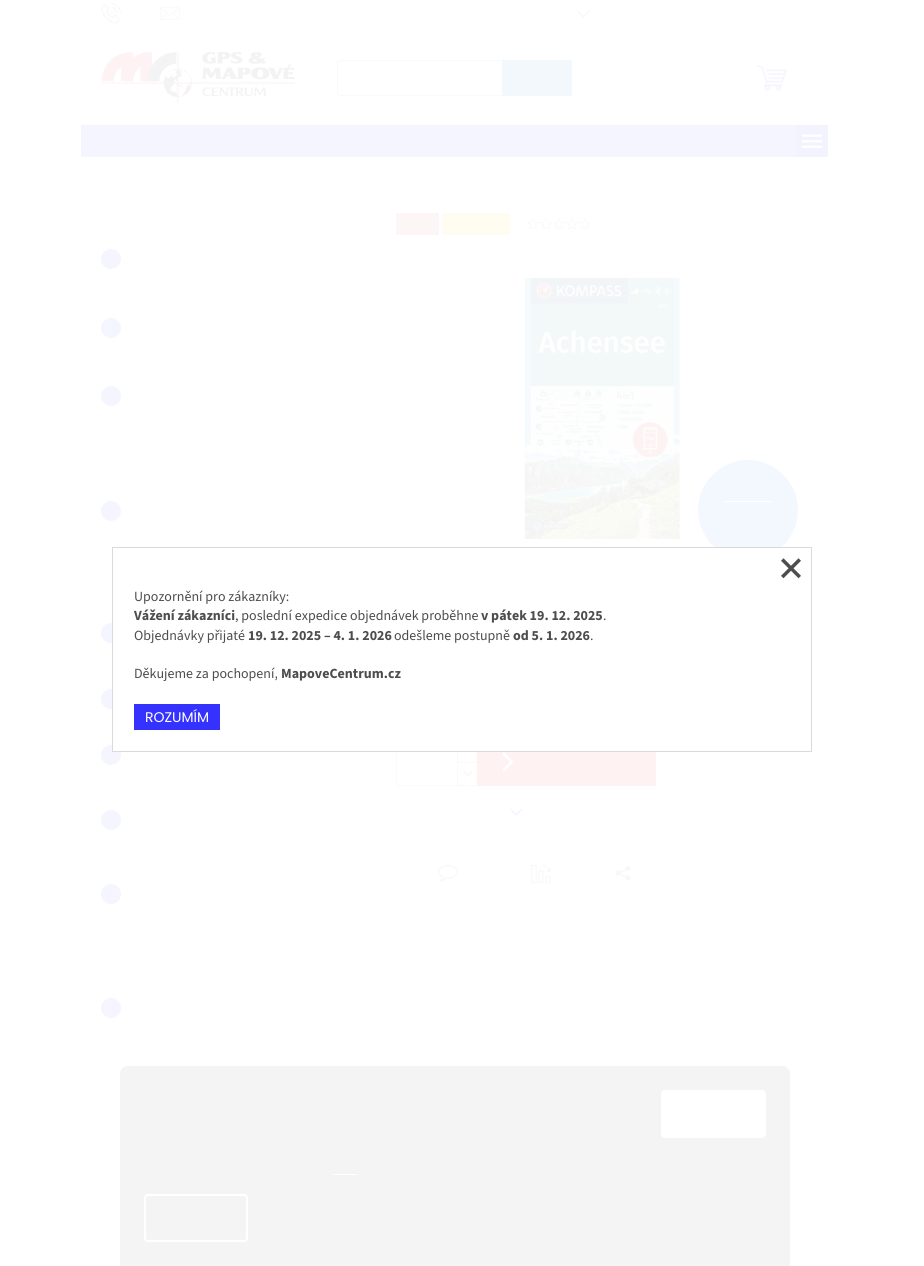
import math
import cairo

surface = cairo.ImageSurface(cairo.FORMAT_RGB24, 924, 1266)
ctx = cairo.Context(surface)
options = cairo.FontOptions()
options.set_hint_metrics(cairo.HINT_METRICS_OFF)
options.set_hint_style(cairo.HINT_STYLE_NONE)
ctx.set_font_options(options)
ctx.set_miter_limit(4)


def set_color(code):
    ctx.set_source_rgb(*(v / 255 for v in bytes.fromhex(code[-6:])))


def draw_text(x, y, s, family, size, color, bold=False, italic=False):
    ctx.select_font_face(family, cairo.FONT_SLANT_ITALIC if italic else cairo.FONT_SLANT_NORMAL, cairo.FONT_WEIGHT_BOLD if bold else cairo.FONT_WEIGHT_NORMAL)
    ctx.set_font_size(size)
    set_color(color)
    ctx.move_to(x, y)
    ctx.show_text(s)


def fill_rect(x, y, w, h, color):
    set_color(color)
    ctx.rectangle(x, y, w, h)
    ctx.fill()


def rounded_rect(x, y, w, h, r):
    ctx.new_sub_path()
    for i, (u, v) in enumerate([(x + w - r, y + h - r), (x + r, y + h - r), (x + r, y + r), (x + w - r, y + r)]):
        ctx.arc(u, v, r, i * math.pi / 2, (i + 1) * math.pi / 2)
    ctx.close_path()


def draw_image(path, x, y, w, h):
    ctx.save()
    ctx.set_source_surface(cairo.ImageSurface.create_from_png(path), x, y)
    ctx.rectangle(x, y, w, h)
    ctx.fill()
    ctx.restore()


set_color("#ffffff")
ctx.paint()
draw_image("assets/img1.png", 101, 3, 20, 21)
draw_image("assets/img2.png", 160, 6, 20, 14)
draw_image("assets/img3.png", 577, 10, 13, 8)
draw_image("assets/img4.png", 101, 46, 196, 59)
rounded_rect(337.5, 60.5, 234, 35, 2.5)
set_color("#fafafa")
ctx.set_line_width(1)
ctx.stroke()
set_color("#f2f8fb")
ctx.rectangle(502.5, 60.5, 69, 35)
ctx.fill_preserve()
set_color("#f2f9fc")
ctx.stroke()
draw_image("assets/img5.png", 757, 65, 30, 26)
fill_rect(81, 125, 715, 32, "#f5f5ff")
fill_rect(796, 125, 32, 32, "#f3f3ff")
draw_image("assets/img6.png", 802, 134, 20, 14)
set_color("#f5f5ff")
ctx.arc(111, 259, 10, 0, 2 * math.pi)
ctx.fill()
ctx.arc(111, 328, 10, 0, 2 * math.pi)
ctx.fill()
ctx.arc(111, 396, 10, 0, 2 * math.pi)
ctx.fill()
ctx.arc(111, 511, 10, 0, 2 * math.pi)
ctx.fill()
ctx.arc(111, 633, 10, 0, 2 * math.pi)
ctx.fill()
ctx.arc(111, 699, 10, 0, 2 * math.pi)
ctx.fill()
ctx.arc(111, 755, 10, 0, 2 * math.pi)
ctx.fill()
ctx.arc(111, 820, 10, 0, 2 * math.pi)
ctx.fill()
ctx.arc(111, 894, 10, 0, 2 * math.pi)
ctx.fill()
ctx.arc(111, 1008, 10, 0, 2 * math.pi)
ctx.fill()
fill_rect(396, 213, 43, 22, "#fdf6f6")
fill_rect(442, 213, 68, 22, "#fffcf2")
draw_image("assets/img7.png", 527, 218, 12, 12)
draw_image("assets/img7.png", 540, 218, 12, 12)
draw_image("assets/img7.png", 553, 218, 12, 12)
draw_image("assets/img7.png", 566, 218, 12, 12)
draw_image("assets/img7.png", 579, 218, 12, 12)
draw_image("assets/img8.png", 524, 274, 159, 269)
set_color("#f3f8ff")
ctx.arc(748, 510, 50, 0, 2 * math.pi)
ctx.fill()
fill_rect(725, 501, 46, 1, "#ffffff")
set_color("#fafafa")
ctx.set_fill_rule(cairo.FILL_RULE_EVEN_ODD)
ctx.new_path()
ctx.move_to(399, 738)
ctx.line_to(477, 738)
ctx.line_to(477, 786)
ctx.line_to(399, 786)
ctx.curve_to(397, 786, 396, 785, 396, 783)
ctx.line_to(396, 741)
ctx.curve_to(396, 739, 397, 738, 399, 738)
ctx.close_path()
ctx.move_to(399, 739)
ctx.line_to(477, 739)
ctx.line_to(477, 785)
ctx.line_to(399, 785)
ctx.curve_to(398, 785, 397, 784, 397, 783)
ctx.line_to(397, 741)
ctx.curve_to(397, 740, 398, 739, 399, 739)
ctx.close_path()
ctx.fill()
fill_rect(457, 752, 1, 10, "#fafafa")
draw_image("assets/img9.png", 463, 752, 9, 1)
fill_rect(457, 762, 20, 1, "#fafafa")
fill_rect(457, 762, 1, 23, "#fafafa")
draw_image("assets/img10.png", 463, 770, 10, 7)
fill_rect(477, 752, 179, 34, "#fff2f2")
set_color("#ffffff")
ctx.set_fill_rule(cairo.FILL_RULE_WINDING)
ctx.new_path()
ctx.move_to(504, 771.5)
ctx.line_to(502, 770)
ctx.line_to(510, 762)
ctx.line_to(502, 754)
ctx.line_to(504, 752)
ctx.line_to(513.5, 762)
ctx.close_path()
ctx.fill()
draw_image("assets/img11.png", 510, 808, 13, 8)
draw_image("assets/img12.png", 438, 864, 20, 18)
draw_image("assets/img13.png", 531, 863, 20, 21)
draw_image("assets/img14.png", 615, 865, 16, 16)
fill_rect(113, 548, 667, 203, "#ffffff")
ctx.rectangle(112.5, 547.5, 699, 204)
set_color("#dadada")
ctx.stroke()
draw_image("assets/img15.png", 781, 558, 20, 21)
draw_text(134, 601, "Upozornění pro zákazníky:", "Source Sans 3", 14, "#4d4d4d")
draw_text(134, 620, "Vážení zákazníci", "Source Sans 3", 14, "#4d4d4d", bold=True)
draw_text(235, 620, ", poslední expedice objednávek proběhne", "Source Sans 3", 14, "#4d4d4d")
draw_text(481, 620, "v pátek 19. 12. 2025", "Source Sans 3", 14, "#4d4d4d", bold=True)
draw_text(603, 620, ".", "Source Sans 3", 14, "#4d4d4d")
draw_text(134, 640, "Objednávky přijaté", "Source Sans 3", 14, "#4d4d4d")
draw_text(248, 640, "19. 12. 2025 – 4. 1. 2026", "Source Sans 3", 14, "#4d4d4d", bold=True)
draw_text(394, 640, "odešleme postupně", "Source Sans 3", 14, "#4d4d4d")
draw_text(513, 640, "od 5. 1. 2026", "Source Sans 3", 14, "#4d4d4d", bold=True)
draw_text(590, 640, ".", "Source Sans 3", 14, "#4d4d4d")
draw_text(134, 678, "Děkujeme za pochopení,", "Source Sans 3", 14, "#4d4d4d")
draw_text(281, 678, "MapoveCentrum.cz", "Source Sans 3", 14, "#4d4d4d", bold=True)
fill_rect(134, 704, 86, 26, "#3531ff")
draw_text(145, 722, "ROZUMÍM", "Poppins", 14, "#ffffff")
set_color("#f4f4f5")
ctx.new_path()
ctx.move_to(128, 1066)
ctx.line_to(782, 1066)
ctx.curve_to(786.5, 1066, 790, 1069.5, 790, 1074)
ctx.line_to(790, 1266)
ctx.line_to(120, 1266)
ctx.line_to(120, 1074)
ctx.curve_to(120, 1069.5, 123.5, 1066, 128, 1066)
ctx.close_path()
ctx.fill()
set_color("#ffffff")
rounded_rect(661, 1090, 105, 48, 4)
ctx.fill()
fill_rect(333, 1174, 24, 1, "#ffffff")
rounded_rect(145, 1195, 102, 46, 3)
ctx.set_line_width(2)
ctx.stroke()
surface.write_to_png("output.png")
